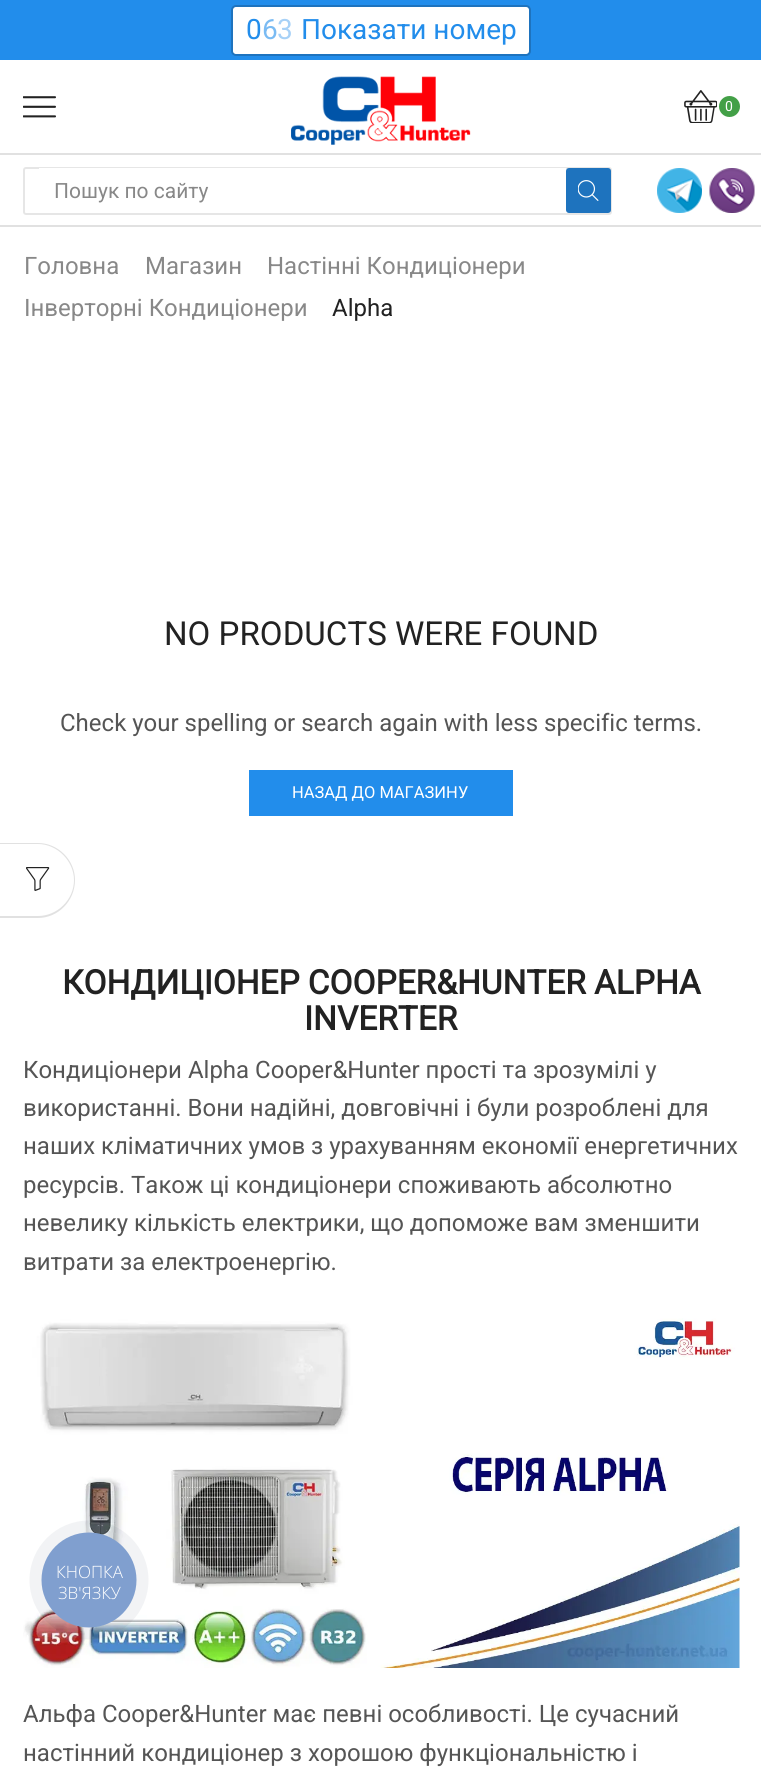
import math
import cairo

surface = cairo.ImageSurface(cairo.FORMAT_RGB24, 761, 1775)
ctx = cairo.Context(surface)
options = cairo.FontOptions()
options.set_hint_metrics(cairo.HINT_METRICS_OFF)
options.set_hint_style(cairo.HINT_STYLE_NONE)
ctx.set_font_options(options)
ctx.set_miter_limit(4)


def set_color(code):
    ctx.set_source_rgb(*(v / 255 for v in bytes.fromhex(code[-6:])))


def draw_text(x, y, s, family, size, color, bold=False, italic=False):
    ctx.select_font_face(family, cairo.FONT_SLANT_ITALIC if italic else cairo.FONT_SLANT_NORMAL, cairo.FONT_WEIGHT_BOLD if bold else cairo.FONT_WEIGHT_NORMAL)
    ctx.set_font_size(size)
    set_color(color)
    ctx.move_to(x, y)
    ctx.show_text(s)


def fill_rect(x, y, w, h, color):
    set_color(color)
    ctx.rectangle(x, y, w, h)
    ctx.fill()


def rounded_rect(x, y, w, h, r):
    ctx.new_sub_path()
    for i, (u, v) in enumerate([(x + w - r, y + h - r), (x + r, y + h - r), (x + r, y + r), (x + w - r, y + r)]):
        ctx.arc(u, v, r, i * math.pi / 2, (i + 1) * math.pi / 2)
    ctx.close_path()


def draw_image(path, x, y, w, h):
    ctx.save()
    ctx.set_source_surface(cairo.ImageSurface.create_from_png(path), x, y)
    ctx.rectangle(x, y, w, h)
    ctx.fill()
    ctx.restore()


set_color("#ffffff")
ctx.paint()
fill_rect(0, 0, 761, 60, "#228deb")
set_color("#ffffff")
rounded_rect(232, 6, 298, 49, 4)
ctx.fill_preserve()
set_color("#1e73be")
ctx.stroke()
draw_text(246, 39, "0", "Roboto", 28, "#228deb")
draw_text(262, 39, "6", "Roboto", 28, "#7abbf3")
draw_text(277, 39, "3", "Roboto", 28, "#a7d1f7")
draw_text(301, 39, "Показати номер", "Roboto", 28, "#228deb")
fill_rect(0, 153, 761, 2, "#e1e1e1")
draw_image("assets/img1.png", 23, 96, 33, 22)
draw_image("assets/img2.png", 291, 76, 180, 69)
draw_image("assets/img3.png", 684, 90, 33, 33)
set_color("#43a047")
ctx.arc(729.5, 106.5, 10.5, 0, 2 * math.pi)
ctx.fill()
draw_text(725, 111, "0", "Roboto", 14, "#ffffff")
fill_rect(0, 225, 761, 2, "#e1e1e1")
rounded_rect(24, 168, 587, 46, 2)
set_color("#e6e6e6")
ctx.stroke()
fill_rect(39, 168, 527, 1, "#ffffff")
draw_text(54, 198, "Пошук по сайту", "Roboto", 21, "#888888")
set_color("#1e73be")
rounded_rect(566, 168, 45, 45, 3)
ctx.fill()
draw_image("assets/img4.png", 578, 180, 21, 21)
draw_image("assets/img5.png", 657, 168, 45, 45)
draw_image("assets/img6.png", 709, 168, 46, 45)
draw_text(24, 274, "Головна", "Roboto", 24, "#888888")
draw_text(145, 274, "Магазин", "Roboto", 24, "#888888")
draw_text(267, 274, "Настінні Кондиціонери", "Roboto", 24, "#888888")
draw_text(24, 316, "Інверторні Кондиціонери", "Roboto", 24, "#888888")
draw_text(332, 316, "Alpha", "Roboto", 24, "#222222")
draw_text(164, 645, "NO PRODUCTS WERE FOUND", "Roboto", 33.1, "#222222")
draw_text(60, 731, "Check your spelling or search again with less specific terms.", "Roboto", 24, "#555555")
fill_rect(249, 770, 264, 46, "#228deb")
draw_text(292, 798, "НАЗАД ДО МАГАЗИНУ", "Roboto", 16.5, "#ffffff")
draw_text(62, 994, "КОНДИЦІОНЕР COOPER&HUNTER ALPHA", "Roboto", 33.4, "#222222", bold=True)
draw_text(304, 1030, "INVERTER", "Roboto", 33.4, "#222222", bold=True)
draw_text(23, 1078, "Кондиціонери Alpha Cooper&Hunter прості та зрозумілі у", "Roboto", 24, "#555555")
draw_text(23, 1116, "використанні. Вони надійні, довговічні і були розроблені для", "Roboto", 24, "#555555")
draw_text(23, 1154, "наших кліматичних умов з урахуванням економії енергетичних", "Roboto", 24, "#555555")
draw_text(23, 1193, "ресурсів. Також ці кондиціонери споживають абсолютно", "Roboto", 24, "#555555")
draw_text(23, 1231, "невелику кількість електрики, що допоможе вам зменшити", "Roboto", 24, "#555555")
draw_text(23, 1270, "витрати за електроенергію.", "Roboto", 24, "#555555")
draw_image("assets/img7.png", 23, 1318, 717, 350)
draw_text(23, 1722, "Альфа Cooper&Hunter має певні особливості. Це сучасний", "Roboto", 24, "#555555")
draw_text(23, 1761, "настінний кондиціонер з хорошою функціональністю і", "Roboto", 24, "#555555")
set_color("#e1e1e1")
ctx.set_fill_rule(cairo.FILL_RULE_EVEN_ODD)
ctx.new_path()
ctx.move_to(0, 843)
ctx.line_to(38, 843)
ctx.curve_to(58, 843, 75, 860, 75, 880)
ctx.curve_to(75, 901, 58, 918, 38, 918)
ctx.line_to(0, 918)
ctx.close_path()
ctx.move_to(0, 844)
ctx.line_to(38, 844)
ctx.curve_to(57, 844, 74, 861, 74, 880)
ctx.curve_to(74, 900, 57, 916, 38, 916)
ctx.line_to(0, 916)
ctx.close_path()
ctx.fill()
draw_image("assets/img8.png", 26, 867, 24, 24)
ctx.set_source_rgba(0.165, 0.251, 0.365, 0.06)
ctx.arc(89, 1580, 59.5, 0, 2 * math.pi)
ctx.fill()
set_color("#809fcf")
ctx.arc(89, 1580, 47.5, 0, 2 * math.pi)
ctx.fill()
draw_text(56, 1578, "КНОПКА", "Open Sans Light", 17, "#ffffff")
draw_text(58, 1599, "ЗВ'ЯЗКУ", "Open Sans Light", 17, "#ffffff")
surface.write_to_png("output.png")
